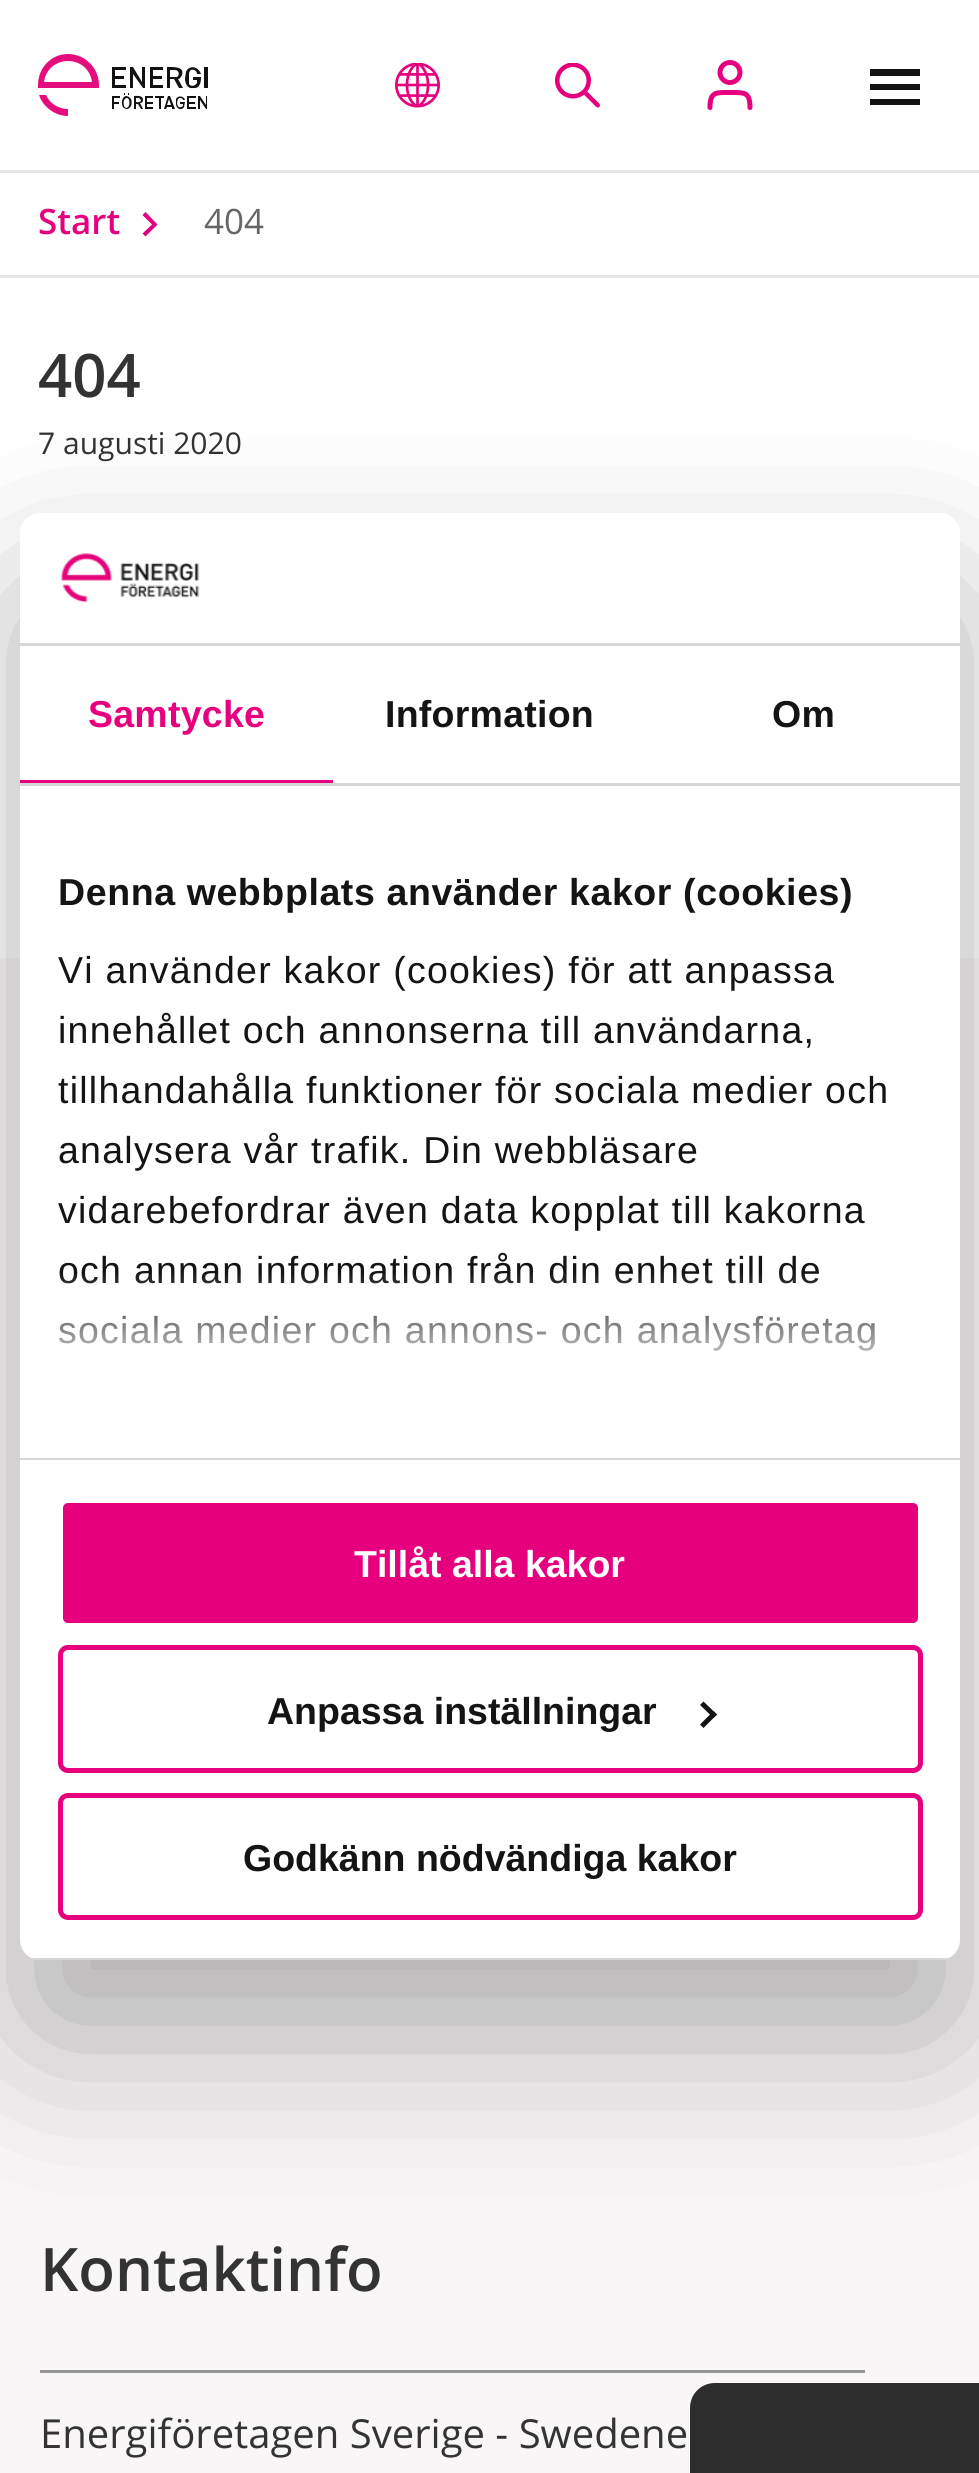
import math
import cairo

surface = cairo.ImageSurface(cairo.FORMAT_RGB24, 979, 2473)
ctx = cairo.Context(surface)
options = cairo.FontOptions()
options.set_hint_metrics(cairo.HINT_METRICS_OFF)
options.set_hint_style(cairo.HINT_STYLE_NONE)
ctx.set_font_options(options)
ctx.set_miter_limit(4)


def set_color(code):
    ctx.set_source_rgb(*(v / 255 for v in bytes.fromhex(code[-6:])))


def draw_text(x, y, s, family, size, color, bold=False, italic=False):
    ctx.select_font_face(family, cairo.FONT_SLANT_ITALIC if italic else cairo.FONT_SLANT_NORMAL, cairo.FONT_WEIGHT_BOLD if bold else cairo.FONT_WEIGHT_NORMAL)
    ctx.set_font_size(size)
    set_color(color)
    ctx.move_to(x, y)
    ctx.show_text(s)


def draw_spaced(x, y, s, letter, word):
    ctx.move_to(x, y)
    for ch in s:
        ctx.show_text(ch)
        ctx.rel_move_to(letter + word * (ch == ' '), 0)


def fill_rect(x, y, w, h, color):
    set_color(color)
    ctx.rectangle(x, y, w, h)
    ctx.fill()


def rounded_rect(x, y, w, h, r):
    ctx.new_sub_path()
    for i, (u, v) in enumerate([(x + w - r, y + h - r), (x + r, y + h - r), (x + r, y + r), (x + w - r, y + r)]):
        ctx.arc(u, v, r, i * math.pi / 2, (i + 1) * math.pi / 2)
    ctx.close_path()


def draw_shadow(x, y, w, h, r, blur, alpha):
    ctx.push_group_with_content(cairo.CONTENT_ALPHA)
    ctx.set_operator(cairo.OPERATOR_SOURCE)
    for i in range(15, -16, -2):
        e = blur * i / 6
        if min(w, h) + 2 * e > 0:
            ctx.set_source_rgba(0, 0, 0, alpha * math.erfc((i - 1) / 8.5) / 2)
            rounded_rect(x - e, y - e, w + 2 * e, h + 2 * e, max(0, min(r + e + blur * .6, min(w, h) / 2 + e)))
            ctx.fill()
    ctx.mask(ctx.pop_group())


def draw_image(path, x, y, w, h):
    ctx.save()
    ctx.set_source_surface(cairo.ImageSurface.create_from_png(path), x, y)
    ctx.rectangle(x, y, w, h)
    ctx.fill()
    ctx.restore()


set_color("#ffffff")
ctx.paint()
fill_rect(0, 170, 979, 3, "#e6e5e5")
set_color("#e50c7e")
ctx.set_fill_rule(cairo.FILL_RULE_EVEN_ODD)
ctx.new_path()
ctx.move_to(68, 54)
ctx.curve_to(85, 54, 99, 68, 99, 85)
ctx.line_to(99, 88)
ctx.line_to(38, 88)
ctx.line_to(38, 85)
ctx.curve_to(38, 68, 51, 54, 68, 54)
ctx.close_path()
ctx.move_to(44, 82)
ctx.line_to(92, 82)
ctx.curve_to(88, 54, 48, 54, 44, 82)
ctx.close_path()
ctx.move_to(46, 95)
ctx.curve_to(50, 104, 59, 109, 68, 109)
ctx.line_to(68, 116)
ctx.curve_to(55, 116, 43, 107, 39, 95)
ctx.close_path()
ctx.fill()
set_color("#121212")
ctx.new_path()
ctx.move_to(193, 88)
ctx.curve_to(187, 89, 185, 83, 185, 78)
ctx.line_to(186, 72)
ctx.curve_to(187, 68, 192, 66, 196, 68)
ctx.curve_to(198, 69, 200, 71, 201, 74)
ctx.line_to(197, 74)
ctx.curve_to(197, 71, 194, 69, 191, 70)
ctx.curve_to(189, 71, 189, 74, 189, 76)
ctx.line_to(189, 84)
ctx.curve_to(191, 87, 195, 86, 197, 83)
ctx.line_to(197, 80)
ctx.line_to(193, 80)
ctx.line_to(193, 77)
ctx.line_to(201, 77)
ctx.curve_to(201, 82, 200, 89, 193, 88)
ctx.close_path()
ctx.move_to(126, 85)
ctx.line_to(126, 88)
ctx.line_to(112, 88)
ctx.line_to(112, 67)
ctx.line_to(126, 67)
ctx.line_to(126, 70)
ctx.line_to(115, 70)
ctx.line_to(115, 76)
ctx.line_to(124, 76)
ctx.line_to(124, 79)
ctx.line_to(115, 79)
ctx.line_to(115, 85)
ctx.close_path()
ctx.move_to(145, 88)
ctx.line_to(143, 88)
ctx.line_to(133, 74)
ctx.line_to(133, 88)
ctx.line_to(130, 88)
ctx.line_to(130, 67)
ctx.line_to(133, 67)
ctx.line_to(142, 82)
ctx.line_to(142, 67)
ctx.line_to(145, 67)
ctx.close_path()
ctx.move_to(163, 85)
ctx.line_to(163, 88)
ctx.line_to(150, 88)
ctx.line_to(150, 67)
ctx.line_to(163, 67)
ctx.line_to(163, 70)
ctx.line_to(153, 70)
ctx.line_to(153, 76)
ctx.line_to(162, 76)
ctx.line_to(162, 79)
ctx.line_to(153, 79)
ctx.line_to(153, 85)
ctx.close_path()
ctx.move_to(170, 79)
ctx.line_to(170, 88)
ctx.line_to(167, 88)
ctx.line_to(167, 67)
ctx.curve_to(172, 67, 185, 66, 182, 75)
ctx.curve_to(181, 77, 180, 79, 178, 79)
ctx.line_to(183, 88)
ctx.line_to(179, 88)
ctx.line_to(174, 79)
ctx.close_path()
ctx.move_to(204, 88)
ctx.line_to(204, 67)
ctx.line_to(208, 67)
ctx.line_to(208, 88)
ctx.close_path()
ctx.move_to(170, 70)
ctx.line_to(170, 77)
ctx.line_to(177, 77)
ctx.curve_to(180, 75, 179, 70, 175, 70)
ctx.close_path()
ctx.move_to(124, 95)
ctx.line_to(124, 93)
ctx.line_to(125, 93)
ctx.line_to(125, 95)
ctx.close_path()
ctx.move_to(128, 95)
ctx.line_to(128, 93)
ctx.line_to(129, 93)
ctx.line_to(129, 95)
ctx.close_path()
ctx.move_to(180, 104)
ctx.line_to(180, 102)
ctx.line_to(185, 102)
ctx.line_to(184, 107)
ctx.curve_to(182, 111, 176, 109, 176, 104)
ctx.line_to(176, 99)
ctx.curve_to(178, 95, 184, 96, 185, 100)
ctx.line_to(183, 100)
ctx.curve_to(183, 99, 182, 98, 180, 98)
ctx.curve_to(176, 98, 176, 109, 181, 107)
ctx.curve_to(183, 107, 183, 105, 183, 104)
ctx.close_path()
ctx.move_to(130, 98)
ctx.curve_to(132, 99, 132, 104, 131, 106)
ctx.curve_to(130, 108, 128, 109, 127, 109)
ctx.curve_to(118, 109, 122, 90, 130, 98)
ctx.close_path()
ctx.move_to(143, 100)
ctx.curve_to(143, 102, 142, 103, 140, 103)
ctx.line_to(143, 109)
ctx.line_to(141, 109)
ctx.line_to(138, 104)
ctx.line_to(136, 104)
ctx.line_to(136, 109)
ctx.line_to(134, 109)
ctx.line_to(134, 96)
ctx.curve_to(137, 96, 143, 95, 143, 100)
ctx.close_path()
ctx.move_to(112, 109)
ctx.line_to(112, 96)
ctx.line_to(120, 96)
ctx.line_to(120, 98)
ctx.line_to(114, 98)
ctx.line_to(114, 102)
ctx.line_to(119, 102)
ctx.line_to(119, 104)
ctx.line_to(114, 104)
ctx.line_to(114, 109)
ctx.close_path()
ctx.move_to(145, 109)
ctx.line_to(145, 96)
ctx.line_to(153, 96)
ctx.line_to(153, 98)
ctx.line_to(147, 98)
ctx.line_to(147, 102)
ctx.line_to(153, 102)
ctx.line_to(153, 104)
ctx.line_to(147, 104)
ctx.line_to(147, 107)
ctx.line_to(153, 107)
ctx.line_to(153, 109)
ctx.close_path()
ctx.move_to(164, 96)
ctx.line_to(164, 98)
ctx.line_to(161, 98)
ctx.line_to(161, 109)
ctx.line_to(159, 109)
ctx.line_to(159, 98)
ctx.line_to(155, 98)
ctx.line_to(155, 96)
ctx.close_path()
ctx.move_to(168, 96)
ctx.line_to(170, 96)
ctx.line_to(175, 109)
ctx.line_to(172, 109)
ctx.line_to(172, 107)
ctx.line_to(167, 107)
ctx.line_to(166, 109)
ctx.line_to(164, 109)
ctx.close_path()
ctx.move_to(187, 109)
ctx.line_to(187, 96)
ctx.line_to(196, 96)
ctx.line_to(196, 98)
ctx.line_to(189, 98)
ctx.line_to(189, 102)
ctx.line_to(195, 102)
ctx.line_to(195, 104)
ctx.line_to(189, 104)
ctx.line_to(189, 107)
ctx.line_to(196, 107)
ctx.line_to(196, 109)
ctx.close_path()
ctx.move_to(206, 105)
ctx.line_to(206, 96)
ctx.line_to(207, 96)
ctx.line_to(207, 109)
ctx.line_to(206, 109)
ctx.line_to(200, 100)
ctx.line_to(200, 109)
ctx.line_to(198, 109)
ctx.line_to(198, 96)
ctx.line_to(200, 96)
ctx.close_path()
ctx.move_to(128, 107)
ctx.curve_to(131, 104, 129, 95, 125, 99)
ctx.curve_to(122, 101, 124, 111, 128, 107)
ctx.close_path()
ctx.move_to(136, 102)
ctx.curve_to(137, 102, 141, 103, 141, 100)
ctx.line_to(139, 98)
ctx.line_to(136, 98)
ctx.close_path()
ctx.move_to(167, 105)
ctx.line_to(171, 105)
ctx.line_to(169, 99)
ctx.close_path()
ctx.fill()
draw_image("assets/img1.png", 395, 63, 45, 45)
draw_image("assets/img2.png", 555, 63, 45, 45)
ctx.new_path()
ctx.move_to(750, 107.5)
ctx.curve_to(750, 91.5, 744, 92.5, 730, 92.5)
ctx.curve_to(716, 92.5, 710, 91.5, 710, 107.5)
set_color("#e6007e")
ctx.set_line_width(5)
ctx.set_line_cap(cairo.LINE_CAP_ROUND)
ctx.set_line_join(cairo.LINE_JOIN_ROUND)
ctx.stroke()
ctx.arc(730, 72.5, 10, 0, 2 * math.pi)
ctx.set_line_cap(cairo.LINE_CAP_BUTT)
ctx.set_line_join(cairo.LINE_JOIN_MITER)
ctx.stroke()
set_color("#121212")
ctx.set_fill_rule(cairo.FILL_RULE_WINDING)
ctx.new_path()
ctx.move_to(870, 76)
ctx.line_to(920, 76)
ctx.line_to(920, 69)
ctx.line_to(870, 69)
ctx.close_path()
ctx.move_to(870, 90)
ctx.line_to(920, 90)
ctx.line_to(920, 84)
ctx.line_to(870, 84)
ctx.close_path()
ctx.move_to(870, 105)
ctx.line_to(920, 105)
ctx.line_to(920, 99)
ctx.line_to(870, 99)
ctx.close_path()
ctx.fill()
fill_rect(0, 275, 979, 3, "#e6e5e5")
draw_text(38, 234, "Start", "Open Sans SemiBold", 35, "#e6007e")
ctx.new_path()
ctx.move_to(145.5, 212)
ctx.line_to(142.5, 215)
ctx.line_to(152, 224.5)
ctx.line_to(142.5, 233.5)
ctx.line_to(145.5, 236.5)
ctx.line_to(157.5, 224.5)
ctx.close_path()
ctx.fill()
draw_text(204, 234, "404", "Open Sans", 35, "#666666")
draw_text(38, 397, "404", "Open Sans SemiBold", 60, "#333333")
draw_text(38, 454, "7 augusti 2020", "Open Sans", 30, "#333333")
fill_rect(0, 958, 979, 1515, "#f8f6f6")
fill_rect(40, 2370, 825, 3, "#979797")
draw_text(40, 2291, "Kontaktinfo", "Open Sans SemiBold", 60, "#333333")
draw_text(40, 2448, "Energiföretagen Sverige - Swedene", "Open Sans", 40, "#333333")
set_color("#000000")
draw_shadow(20, 593, 940, 1447, 20, 85, 0.3)
set_color("#ffffff")
rounded_rect(20, 513, 940, 1447, 20)
ctx.fill()
fill_rect(20, 643, 940, 3, "#d6d6d6")
draw_image("assets/img3.png", 61, 553, 139, 50)
fill_rect(20, 783, 940, 3, "#d6d6d6")
fill_rect(20, 780, 313, 3, "#e6007e")
ctx.select_font_face("Liberation Sans", cairo.FONT_SLANT_NORMAL, cairo.FONT_WEIGHT_BOLD)
ctx.set_font_size(37.5)
draw_spaced(88, 727, "Samtycke", 0.25, 0)
set_color("#141414")
draw_spaced(385, 727, "Information", 0.25, 0)
draw_spaced(772, 727, "Om", 0.25, 0)
fill_rect(20, 1458, 940, 2, "#d6d6d6")
set_color("#141414")
draw_spaced(58, 905, "Denna webbplats använder kakor (cookies)", 0.6, 0)
ctx.select_font_face("Liberation Sans")
draw_spaced(58, 983, "Vi använder kakor (cookies) för att anpassa", 1.25, 0)
draw_spaced(58, 1043, "innehållet och annonserna till användarna,", 1.25, 0)
draw_spaced(58, 1103, "tillhandahålla funktioner för sociala medier och", 1.25, 0)
draw_spaced(58, 1163, "analysera vår trafik. Din webbläsare", 1.25, 0)
draw_spaced(58, 1223, "vidarebefordrar även data kopplat till kakorna", 1.25, 0)
draw_spaced(58, 1283, "och annan information från din enhet till de", 1.25, 0)
draw_spaced(58, 1343, "sociala medier och annons- och analysföretag", 1.25, 0)
gradient = cairo.LinearGradient(474, 1458, 474, 1271)
gradient.add_color_stop_rgba(0, 1, 1, 1, 1)
gradient.add_color_stop_rgba(0.5, 1, 1, 1, 0.8)
gradient.add_color_stop_rgba(1, 1, 1, 1, 0)
ctx.set_source(gradient)
ctx.rectangle(58, 1274, 816, 77)
ctx.fill()
ctx.save()
rounded_rect(20, 513, 940, 1447, 20)
ctx.clip()
fill_rect(31, 1958, 918, 2, "#d6d6d6")
ctx.restore()
set_color("#e6007e")
rounded_rect(60.5, 1500.5, 860, 125, 7.5)
ctx.fill_preserve()
set_color("#ffffff")
ctx.stroke()
draw_text(354, 1577, "Tillåt alla kakor", "Liberation Sans", 37.5, "#ffffff", bold=True)
rounded_rect(60.5, 1647.5, 860, 123, 7.5)
set_color("#e6007e")
ctx.stroke()
draw_text(267, 1724, "Anpassa inställningar", "Liberation Sans", 37.5, "#141414", bold=True)
ctx.new_path()
ctx.move_to(703.5, 1701.5)
ctx.line_to(717, 1714.5)
ctx.line_to(713.5, 1718)
ctx.line_to(700, 1705)
ctx.close_path()
ctx.fill()
ctx.new_path()
ctx.move_to(713.5, 1711)
ctx.line_to(717, 1714.5)
ctx.line_to(703.5, 1728)
ctx.line_to(700, 1724.5)
ctx.close_path()
ctx.fill()
rounded_rect(60.5, 1795.5, 860, 122, 7.5)
set_color("#e6007e")
ctx.stroke()
draw_text(243, 1871, "Godkänn nödvändiga kakor", "Liberation Sans", 37.5, "#141414", bold=True)
set_color("#2d2d2d")
ctx.new_path()
ctx.move_to(715, 2383)
ctx.line_to(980, 2383)
ctx.line_to(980, 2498)
ctx.line_to(690, 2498)
ctx.line_to(690, 2408)
ctx.curve_to(690, 2394, 701, 2383, 715, 2383)
ctx.close_path()
ctx.fill()
surface.write_to_png("output.png")
